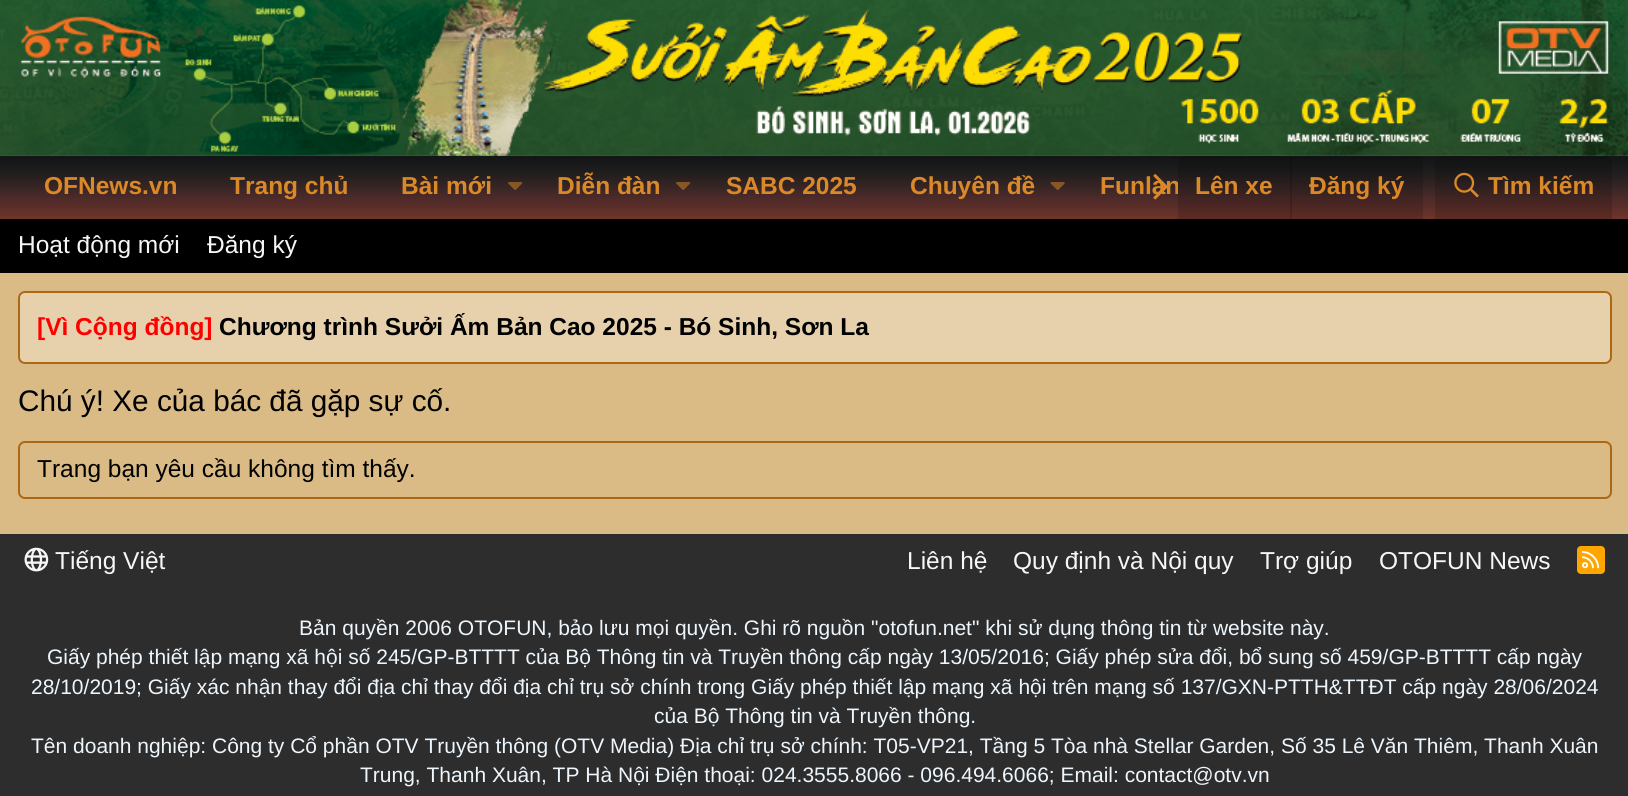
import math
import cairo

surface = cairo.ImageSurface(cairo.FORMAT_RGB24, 1628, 796)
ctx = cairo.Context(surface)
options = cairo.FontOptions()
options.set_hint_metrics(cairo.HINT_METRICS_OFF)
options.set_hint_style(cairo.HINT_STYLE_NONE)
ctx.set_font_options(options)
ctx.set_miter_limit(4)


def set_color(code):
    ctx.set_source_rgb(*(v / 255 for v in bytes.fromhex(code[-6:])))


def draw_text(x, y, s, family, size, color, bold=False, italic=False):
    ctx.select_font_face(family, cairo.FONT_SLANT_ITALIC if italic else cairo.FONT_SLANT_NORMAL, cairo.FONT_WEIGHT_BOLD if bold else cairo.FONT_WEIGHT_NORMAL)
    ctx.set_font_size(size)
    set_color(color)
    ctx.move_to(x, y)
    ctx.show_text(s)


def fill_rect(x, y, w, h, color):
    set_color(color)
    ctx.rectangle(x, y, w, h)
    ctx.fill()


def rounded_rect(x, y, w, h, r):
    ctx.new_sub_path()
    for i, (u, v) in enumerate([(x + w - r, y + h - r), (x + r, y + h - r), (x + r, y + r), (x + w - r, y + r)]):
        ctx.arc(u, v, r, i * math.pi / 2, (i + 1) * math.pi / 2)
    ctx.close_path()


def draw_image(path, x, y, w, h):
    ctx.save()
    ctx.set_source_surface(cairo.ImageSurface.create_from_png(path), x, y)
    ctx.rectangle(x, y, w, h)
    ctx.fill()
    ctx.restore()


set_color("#ffffff")
ctx.paint()
draw_image("assets/img1.png", 0, 155, 1628, 1)
draw_image("assets/img2.png", 0, 0, 1628, 156)
draw_image("assets/img3.png", 0, 156, 1628, 63)
draw_text(44, 194, "OFNews.vn", "Liberation Sans", 24.5, "#db8928", bold=True)
draw_text(230, 194, "Trang chủ", "Liberation Sans", 24.5, "#db8928", bold=True)
draw_text(401, 194, "Bài mới", "Liberation Sans", 24.5, "#db8928", bold=True)
draw_image("assets/img4.png", 508, 182, 15, 8)
draw_text(557, 194, "Diễn đàn", "Liberation Sans", 24.5, "#db8928", bold=True)
draw_image("assets/img4.png", 676, 182, 15, 8)
draw_text(726, 194, "SABC 2025", "Liberation Sans", 24.5, "#db8928", bold=True)
draw_text(910, 194, "Chuyên đề", "Liberation Sans", 24.5, "#db8928", bold=True)
draw_image("assets/img5.png", 1050, 182, 15, 8)
ctx.save()
ctx.rectangle(0, 156, 1178, 63)
ctx.clip()
draw_text(1100, 194, "Funlan", "Liberation Sans", 24.5, "#db8928", bold=True)
ctx.restore()
draw_image("assets/img6.png", 1153, 174, 15, 26)
ctx.set_source_rgba(0, 0, 0, 0.15)
ctx.new_path()
ctx.move_to(1185, 156)
ctx.line_to(1416, 156)
ctx.curve_to(1420, 156, 1423, 159, 1423, 163)
ctx.line_to(1423, 219)
ctx.line_to(1178, 219)
ctx.line_to(1178, 163)
ctx.curve_to(1178, 159, 1181, 156, 1185, 156)
ctx.close_path()
ctx.fill()
draw_text(1195, 194, "Lên xe", "Liberation Sans", 24.5, "#db8928", bold=True)
ctx.set_source_rgba(0, 0, 0, 0.15)
ctx.rectangle(1290, 156, 2, 63)
ctx.fill()
draw_text(1309, 194, "Đăng ký", "Liberation Sans", 24.5, "#db8928", bold=True)
ctx.set_source_rgba(0, 0, 0, 0.15)
ctx.new_path()
ctx.move_to(1442, 156)
ctx.line_to(1605, 156)
ctx.curve_to(1609, 156, 1612, 159, 1612, 163)
ctx.line_to(1612, 219)
ctx.line_to(1435, 219)
ctx.line_to(1435, 163)
ctx.curve_to(1435, 159, 1438, 156, 1442, 156)
ctx.close_path()
ctx.fill()
draw_image("assets/img7.png", 1454, 172, 25, 26)
draw_text(1488, 194, "Tìm kiếm", "Liberation Sans", 24.5, "#db8928", bold=True)
fill_rect(0, 219, 1628, 54, "#000000")
draw_text(18, 253, "Hoạt động mới", "Liberation Sans", 24.5, "#f7f7f7")
draw_text(207, 253, "Đăng ký", "Liberation Sans", 24.5, "#f7f7f7")
fill_rect(0, 273, 1628, 261, "#dabb85")
set_color("#e6d1ac")
rounded_rect(19, 292, 1592, 71, 6)
ctx.fill_preserve()
set_color("#ae6814")
ctx.stroke()
draw_text(37, 335, "[Vì Cộng đồng]", "Liberation Sans", 24.5, "#ff0000", bold=True)
draw_text(219, 335, "Chương trình Sưởi Ấm Bản Cao 2025 - Bó Sinh, Sơn La", "Liberation Sans", 24.5, "#000000", bold=True)
draw_text(18, 411, "Chú ý! Xe của bác đã gặp sự cố.", "Liberation Sans", 29.75, "#000000")
rounded_rect(19, 442, 1592, 56, 6)
set_color("#ae6814")
ctx.stroke()
draw_text(37, 477, "Trang bạn yêu cầu không tìm thấy.", "Liberation Sans", 24.5, "#000000")
fill_rect(0, 534, 1628, 262, "#2d2d2d")
draw_image("assets/img8.png", 24, 547, 25, 25)
draw_text(55, 569, "Tiếng Việt", "Liberation Sans", 24.5, "#f7f7f7")
draw_text(907, 569, "Liên hệ", "Liberation Sans", 24.5, "#f7f7f7")
draw_text(1013, 569, "Quy định và Nội quy", "Liberation Sans", 24.5, "#f7f7f7")
draw_text(1260, 569, "Trợ giúp", "Liberation Sans", 24.5, "#f7f7f7")
draw_text(1379, 569, "OTOFUN News", "Liberation Sans", 24.5, "#f7f7f7")
set_color("#ffa500")
rounded_rect(1577, 546, 28, 28, 4)
ctx.fill()
draw_image("assets/img9.png", 1582, 551, 18, 18)
draw_text(299, 635, "Bản quyền 2006 OTOFUN, bảo lưu mọi quyền. Ghi rõ nguồn \"otofun.net\" khi sử dụng thông tin từ website này.", "Liberation Sans", 21, "#edf6fd")
draw_text(47, 664, "Giấy phép thiết lập mạng xã hội số 245/GP-BTTTT của Bộ Thông tin và Truyền thông cấp ngày 13/05/2016; Giấy phép sửa đổi, bổ sung số 459/GP-BTTTT cấp ngày", "Liberation Sans", 21, "#edf6fd")
draw_text(31, 694, "28/10/2019; Giấy xác nhận thay đổi địa chỉ thay đổi địa chỉ trụ sở chính trong Giấy phép thiết lập mạng xã hội trên mạng số 137/GXN-PTTH&TTĐT cấp ngày 28/06/2024", "Liberation Sans", 21, "#edf6fd")
draw_text(654, 723, "của Bộ Thông tin và Truyền thông.", "Liberation Sans", 21, "#edf6fd")
draw_text(31, 753, "Tên doanh nghiệp: Công ty Cổ phần OTV Truyền thông (OTV Media) Địa chỉ trụ sở chính: T05-VP21, Tầng 5 Tòa nhà Stellar Garden, Số 35 Lê Văn Thiêm, Thanh Xuân", "Liberation Sans", 21, "#edf6fd")
draw_text(360, 782, "Trung, Thanh Xuân, TP Hà Nội Điện thoại: 024.3555.8066 - 096.494.6066; Email: contact@otv.vn", "Liberation Sans", 21, "#edf6fd")
surface.write_to_png("output.png")
